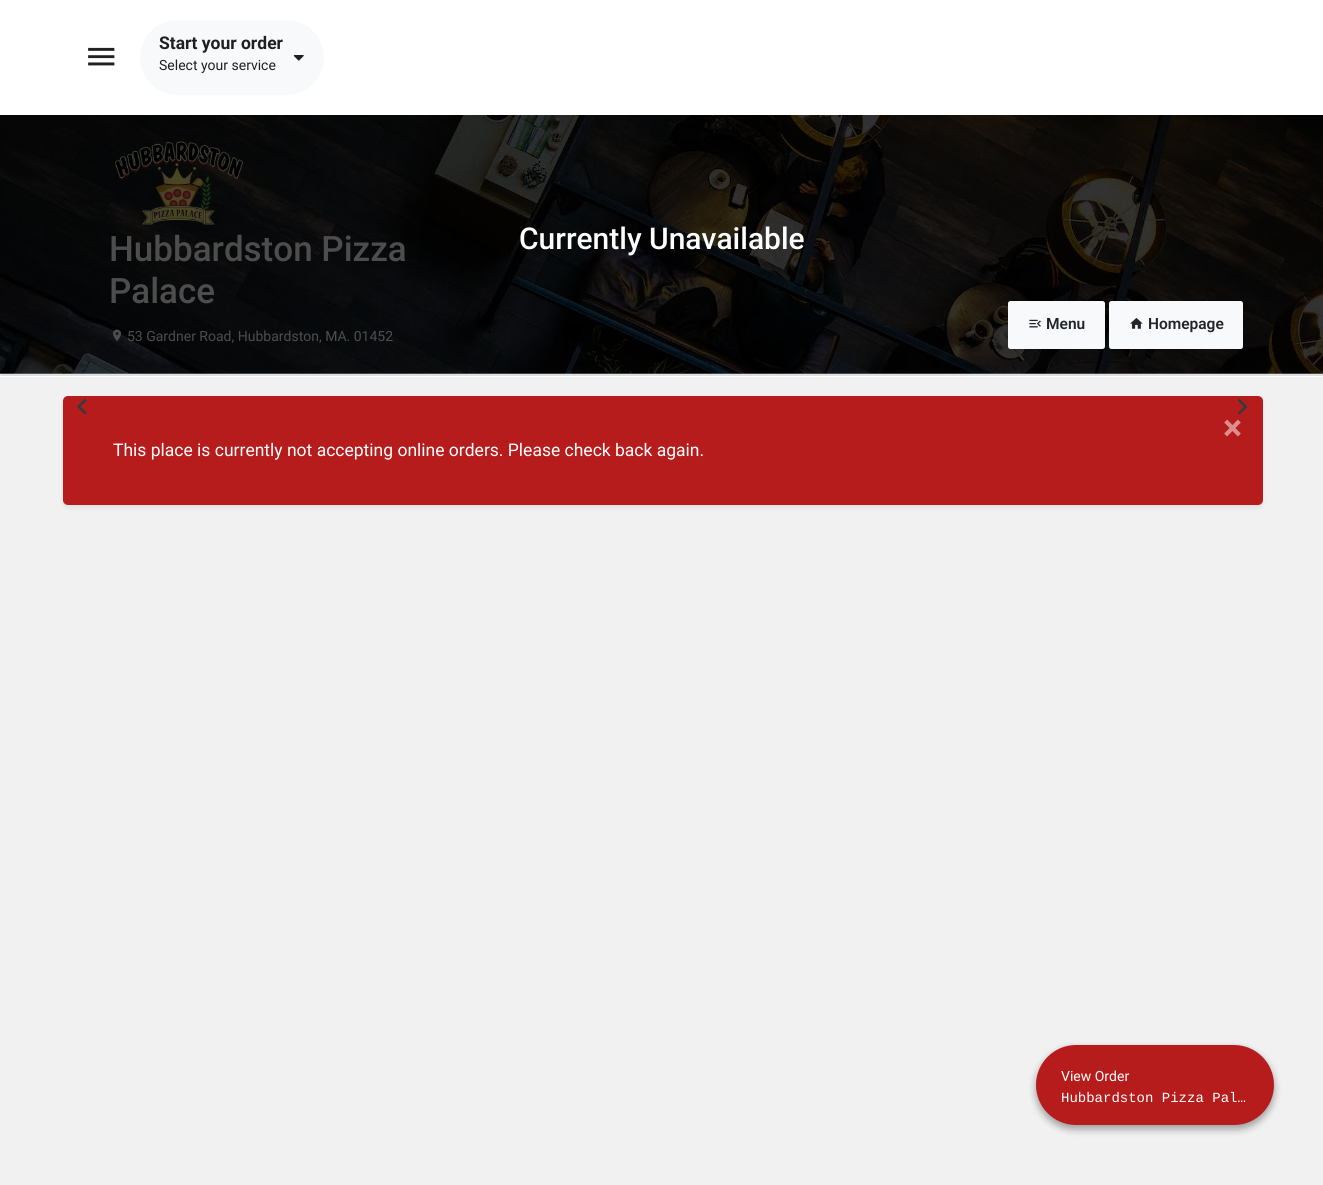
import math
import cairo

surface = cairo.ImageSurface(cairo.FORMAT_RGB24, 1323, 1185)
ctx = cairo.Context(surface)
options = cairo.FontOptions()
options.set_hint_metrics(cairo.HINT_METRICS_OFF)
options.set_hint_style(cairo.HINT_STYLE_NONE)
ctx.set_font_options(options)
ctx.set_miter_limit(4)


def set_color(code):
    ctx.set_source_rgb(*(v / 255 for v in bytes.fromhex(code[-6:])))


def draw_text(x, y, s, family, size, color, bold=False, italic=False):
    ctx.select_font_face(family, cairo.FONT_SLANT_ITALIC if italic else cairo.FONT_SLANT_NORMAL, cairo.FONT_WEIGHT_BOLD if bold else cairo.FONT_WEIGHT_NORMAL)
    ctx.set_font_size(size)
    set_color(color)
    ctx.move_to(x, y)
    ctx.show_text(s)


def fill_rect(x, y, w, h, color):
    set_color(color)
    ctx.rectangle(x, y, w, h)
    ctx.fill()


def rounded_rect(x, y, w, h, r):
    ctx.new_sub_path()
    for i, (u, v) in enumerate([(x + w - r, y + h - r), (x + r, y + h - r), (x + r, y + r), (x + w - r, y + r)]):
        ctx.arc(u, v, r, i * math.pi / 2, (i + 1) * math.pi / 2)
    ctx.close_path()


def draw_shadow(x, y, w, h, r, blur, alpha):
    ctx.push_group_with_content(cairo.CONTENT_ALPHA)
    ctx.set_operator(cairo.OPERATOR_SOURCE)
    for i in range(15, -16, -2):
        e = blur * i / 6
        if min(w, h) + 2 * e > 0:
            ctx.set_source_rgba(0, 0, 0, alpha * math.erfc((i - 1) / 8.5) / 2)
            rounded_rect(x - e, y - e, w + 2 * e, h + 2 * e, max(0, min(r + e + blur * .6, min(w, h) / 2 + e)))
            ctx.fill()
    ctx.mask(ctx.pop_group())


def draw_image(path, x, y, w, h):
    ctx.save()
    ctx.set_source_surface(cairo.ImageSurface.create_from_png(path), x, y)
    ctx.rectangle(x, y, w, h)
    ctx.fill()
    ctx.restore()


set_color("#f1f1f1")
ctx.paint()
fill_rect(0, 0, 1323, 115, "#ffffff")
draw_image("assets/img1.png", 88, 47, 27, 19)
set_color("#f8f9fa")
rounded_rect(140, 20, 184, 75, 37.5)
ctx.fill()
draw_text(159, 49, "Start your order", "Roboto", 17.5, "#202021", bold=True)
draw_text(159, 70, "Select your service", "Roboto", 14, "#202021")
draw_image("assets/img2.png", 293, 55, 11, 6)
draw_image("assets/img3.png", 0, 115, 1323, 259)
draw_image("assets/img4.png", 115, 141, 129, 84)
draw_text(109, 261, "Hubbardston Pizza", "Roboto Medium", 35, "#4d4d4d")
draw_text(109, 303, "Palace", "Roboto Medium", 35, "#4d4d4d")
draw_image("assets/img5.png", 113, 329, 8, 12)
draw_text(127, 341, "53 Gardner Road, Hubbardston, MA. 01452", "Roboto", 14, "#4d4d4d")
draw_text(519, 249, "Currently Unavailable", "Roboto Medium", 30, "#ffffff")
set_color("#f8f9fa")
rounded_rect(1008, 301, 97, 48, 2.5)
ctx.fill()
draw_image("assets/img6.png", 1029, 319, 12, 9)
draw_text(1046, 329, "Menu", "Roboto SemiBold", 15.5, "#212529")
set_color("#f8f9fa")
rounded_rect(1109, 301, 134, 48, 2.5)
ctx.fill()
draw_image("assets/img7.png", 1130, 318, 13, 11)
draw_text(1148, 329, "Homepage", "Roboto SemiBold", 15.5, "#212529")
set_color("#ffffff")
rounded_rect(0, 374, 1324, 3, 1.5)
ctx.fill()
fill_rect(1, 375, 1322, 1, "#dee2e6")
ctx.new_path()
ctx.move_to(1, 375.5)
ctx.curve_to(0.5, 375, 0.5, 374.5, 1, 374.5)
ctx.line_to(1323, 374.5)
ctx.line_to(1323, 375.5)
ctx.set_source_rgba(0, 0, 0, 0.12)
ctx.set_line_width(1.2)
ctx.stroke()
set_color("#000000")
draw_shadow(63, 399, 1200, 109, 5, 2.5, 0.07)
set_color("#b71c1c")
rounded_rect(63, 396, 1200, 109, 5)
ctx.fill()
draw_image("assets/img8.png", 77, 398, 10, 17)
draw_image("assets/img9.png", 1237, 398, 11, 17)
draw_text(1223, 440, "×", "Roboto", 36, "#db8e8e", bold=True)
draw_text(113, 456, "This place is currently not accepting online orders. Please check back again.", "Roboto", 17.5, "#ffffff")
set_color("#000000")
draw_shadow(1036, 1049, 238, 80, 40, 4, 0.23)
draw_shadow(1036, 1049, 238, 80, 40, 4, 0.16)
set_color("#b71c1c")
rounded_rect(1036, 1045, 238, 80, 40)
ctx.fill()
draw_text(1061, 1081, "View Order", "Roboto", 14, "#ffffff")
draw_text(1061, 1102, "Hubbardston Pizza Pal…", "Liberation Mono", 14, "#ffffff")
surface.write_to_png("output.png")
